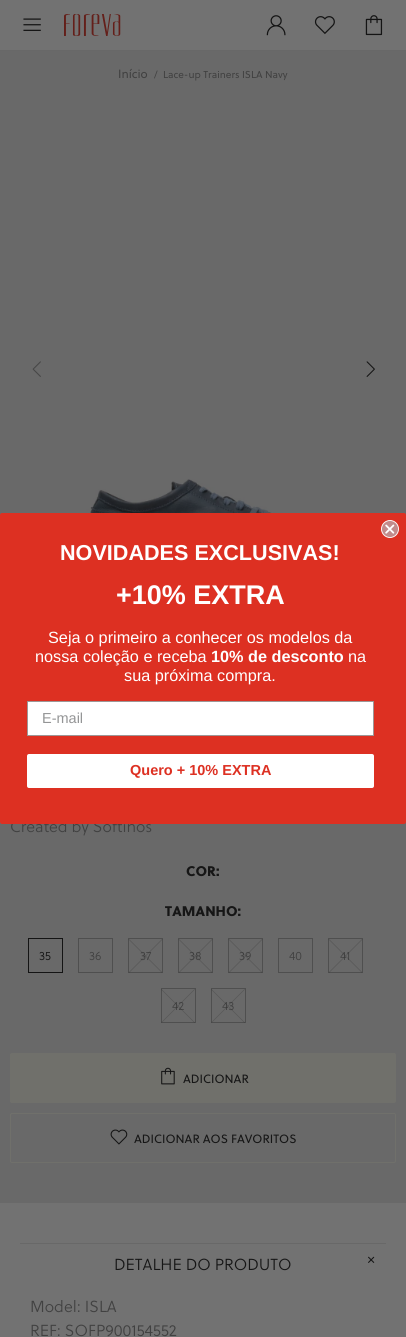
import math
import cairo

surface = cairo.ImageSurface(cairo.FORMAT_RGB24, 406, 1337)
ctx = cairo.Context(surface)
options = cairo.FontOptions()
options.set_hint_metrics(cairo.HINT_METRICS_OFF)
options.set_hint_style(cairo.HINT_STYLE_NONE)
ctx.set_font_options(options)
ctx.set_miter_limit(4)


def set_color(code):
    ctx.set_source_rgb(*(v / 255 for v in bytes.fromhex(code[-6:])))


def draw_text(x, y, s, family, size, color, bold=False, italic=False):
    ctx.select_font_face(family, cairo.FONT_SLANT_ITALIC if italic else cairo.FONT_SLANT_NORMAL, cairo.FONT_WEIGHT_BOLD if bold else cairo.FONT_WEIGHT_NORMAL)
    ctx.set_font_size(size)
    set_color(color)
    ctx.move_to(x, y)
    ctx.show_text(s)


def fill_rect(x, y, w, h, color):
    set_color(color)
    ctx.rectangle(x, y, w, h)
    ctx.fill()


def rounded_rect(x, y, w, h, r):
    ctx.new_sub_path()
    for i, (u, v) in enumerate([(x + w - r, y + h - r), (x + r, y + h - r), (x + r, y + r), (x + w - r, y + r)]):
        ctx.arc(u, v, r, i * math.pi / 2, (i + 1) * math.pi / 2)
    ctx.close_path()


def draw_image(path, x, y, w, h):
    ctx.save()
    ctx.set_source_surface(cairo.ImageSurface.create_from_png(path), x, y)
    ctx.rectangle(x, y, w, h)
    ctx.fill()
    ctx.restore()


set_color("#727272")
ctx.paint()
draw_image("assets/img1.png", 23, 18, 18, 13)
draw_image("assets/img2.png", 64, 14, 57, 22)
draw_image("assets/img3.png", 266, 15, 20, 21)
draw_image("assets/img4.png", 314, 16, 21, 19)
draw_image("assets/img5.png", 365, 15, 18, 21)
fill_rect(0, 50, 406, 1, "#686868")
fill_rect(0, 51, 406, 1152, "#696969")
draw_text(118, 78, "Início", "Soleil", 12, "#414141")
draw_text(154, 78, "/", "Soleil", 10, "#414141")
draw_text(163, 78, "Lace-up Trainers ISLA Navy", "Soleil", 10, "#414141")
draw_image("assets/img6.png", 32, 361, 9, 16)
draw_image("assets/img7.png", 366, 361, 9, 16)
draw_image("assets/img8.png", 85, 479, 234, 34)
draw_text(10, 832, "Created by Softinos", "Soleil Light", 16, "#414141")
draw_text(186, 876, "COR:", "Soleil ExtraBold", 14, "#161616")
draw_text(165, 916, "TAMANHO:", "Soleil ExtraBold", 14, "#161616")
ctx.rectangle(28.5, 938.5, 34, 34)
set_color("#141414")
ctx.set_line_width(1)
ctx.stroke()
draw_text(39, 960, "35", "Soleil Light", 12, "#161616")
ctx.rectangle(78.5, 938.5, 34, 34)
set_color("#4f4f4f")
ctx.stroke()
draw_text(89, 960, "36", "Soleil Light", 12, "#414141")
ctx.rectangle(128.5, 938.5, 34, 34)
set_color("#4f4f4f")
ctx.stroke()
draw_text(140, 960, "37", "Soleil Light", 12, "#414141")
ctx.set_source_rgba(0.078, 0.078, 0.078, 0.21)
ctx.new_path()
ctx.move_to(129, 939)
ctx.line_to(162.5, 972.5)
ctx.line_to(162, 973)
ctx.line_to(128.5, 939.5)
ctx.close_path()
ctx.fill()
ctx.new_path()
ctx.move_to(128.5, 972.5)
ctx.line_to(162, 939)
ctx.line_to(162.5, 939.5)
ctx.line_to(129, 973)
ctx.close_path()
ctx.fill()
ctx.rectangle(178.5, 938.5, 34, 34)
set_color("#4f4f4f")
ctx.stroke()
draw_text(189, 960, "38", "Soleil Light", 12, "#414141")
ctx.set_source_rgba(0.078, 0.078, 0.078, 0.21)
ctx.new_path()
ctx.move_to(179, 939)
ctx.line_to(212.5, 972.5)
ctx.line_to(212, 973)
ctx.line_to(178.5, 939.5)
ctx.close_path()
ctx.fill()
ctx.new_path()
ctx.move_to(178.5, 972.5)
ctx.line_to(212, 939)
ctx.line_to(212.5, 939.5)
ctx.line_to(179, 973)
ctx.close_path()
ctx.fill()
ctx.rectangle(228.5, 938.5, 34, 34)
set_color("#4f4f4f")
ctx.stroke()
draw_text(239, 960, "39", "Soleil Light", 12, "#414141")
ctx.set_source_rgba(0.078, 0.078, 0.078, 0.21)
ctx.new_path()
ctx.move_to(229, 939)
ctx.line_to(262.5, 972.5)
ctx.line_to(262, 973)
ctx.line_to(228.5, 939.5)
ctx.close_path()
ctx.fill()
ctx.new_path()
ctx.move_to(228.5, 972.5)
ctx.line_to(262, 939)
ctx.line_to(262.5, 939.5)
ctx.line_to(229, 973)
ctx.close_path()
ctx.fill()
ctx.rectangle(278.5, 938.5, 34, 34)
set_color("#4f4f4f")
ctx.stroke()
draw_text(289, 960, "40", "Soleil Light", 12, "#414141")
ctx.rectangle(328.5, 938.5, 34, 34)
set_color("#4f4f4f")
ctx.stroke()
draw_text(340, 960, "41", "Soleil Light", 12, "#414141")
ctx.set_source_rgba(0.078, 0.078, 0.078, 0.21)
ctx.new_path()
ctx.move_to(329, 939)
ctx.line_to(362.5, 972.5)
ctx.line_to(362, 973)
ctx.line_to(328.5, 939.5)
ctx.close_path()
ctx.fill()
ctx.new_path()
ctx.move_to(328.5, 972.5)
ctx.line_to(362, 939)
ctx.line_to(362.5, 939.5)
ctx.line_to(329, 973)
ctx.close_path()
ctx.fill()
ctx.rectangle(161.5, 988.5, 34, 34)
set_color("#4f4f4f")
ctx.stroke()
draw_text(172, 1010, "42", "Soleil Light", 12, "#414141")
ctx.set_source_rgba(0.078, 0.078, 0.078, 0.21)
ctx.new_path()
ctx.move_to(161.5, 989)
ctx.line_to(195, 1022.5)
ctx.line_to(194.5, 1023)
ctx.line_to(161, 989.5)
ctx.close_path()
ctx.fill()
ctx.new_path()
ctx.move_to(161, 1022.5)
ctx.line_to(194.5, 989)
ctx.line_to(195, 989.5)
ctx.line_to(161.5, 1023)
ctx.close_path()
ctx.fill()
ctx.rectangle(211.5, 988.5, 34, 34)
set_color("#4f4f4f")
ctx.stroke()
draw_text(222, 1010, "43", "Soleil Light", 12, "#414141")
ctx.set_source_rgba(0.078, 0.078, 0.078, 0.21)
ctx.new_path()
ctx.move_to(211.5, 989)
ctx.line_to(245, 1022.5)
ctx.line_to(244.5, 1023)
ctx.line_to(211, 989.5)
ctx.close_path()
ctx.fill()
ctx.new_path()
ctx.move_to(211, 1022.5)
ctx.line_to(244.5, 989)
ctx.line_to(245, 989.5)
ctx.line_to(211.5, 1023)
ctx.close_path()
ctx.fill()
set_color("#70706b")
rounded_rect(10, 1053, 386, 50, 2)
ctx.fill()
draw_image("assets/img9.png", 161, 1067, 14, 18)
draw_text(183, 1083, "ADICIONAR", "Soleil", 12, "#161616")
rounded_rect(10.5, 1113.5, 385, 49, 1.5)
set_color("#70706b")
ctx.stroke()
draw_image("assets/img10.png", 110, 1129, 18, 16)
draw_text(134, 1143, "ADICIONAR AOS FAVORITOS", "Soleil", 12, "#161616")
fill_rect(20, 1243, 366, 1, "#686868")
draw_text(114, 1270, "DETALHE DO PRODUTO", "Soleil Light", 16, "#161616")
draw_image("assets/img11.png", 368, 1256, 7, 7)
draw_text(30, 1312, "Model: ISLA", "Soleil Light", 16, "#414141")
draw_text(30, 1336, "REF: SOFP900154552", "Soleil Light", 16, "#414141")
set_color("#dd3022")
rounded_rect(0, 513, 406, 311, 2)
ctx.fill()
draw_image("assets/img12.png", 381, 520, 18, 18)
draw_text(60, 560, "NOVIDADES EXCLUSIVAS!", "Liberation Sans", 21.6, "#ffffff", bold=True)
draw_text(116, 604, "+10% EXTRA", "Liberation Sans", 27, "#ffffff", bold=True)
draw_text(48, 643, "Seja o primeiro a conhecer os modelos da", "Liberation Sans", 16.25, "#ffffff")
draw_text(35, 662, "nossa coleção e receba", "Liberation Sans", 16.25, "#ffffff")
draw_text(211, 662, "10% de desconto", "Liberation Sans", 16.25, "#ffffff", bold=True)
draw_text(348, 662, "na", "Liberation Sans", 16.25, "#ffffff")
draw_text(124, 681, "sua próxima compra.", "Liberation Sans", 16.25, "#ffffff")
ctx.rectangle(27.45, 701.45, 346.1, 34.1)
ctx.fill_preserve()
set_color("#949596")
ctx.set_line_width(0.9)
ctx.stroke()
draw_text(42, 723, "E-mail", "Liberation Sans", 14.5, "#949596")
set_color("#ffffff")
rounded_rect(27, 754, 347, 34, 2)
ctx.fill()
draw_text(130, 775, "Quero + 10% EXTRA", "Liberation Sans", 14.5, "#dd3022", bold=True)
surface.write_to_png("output.png")
